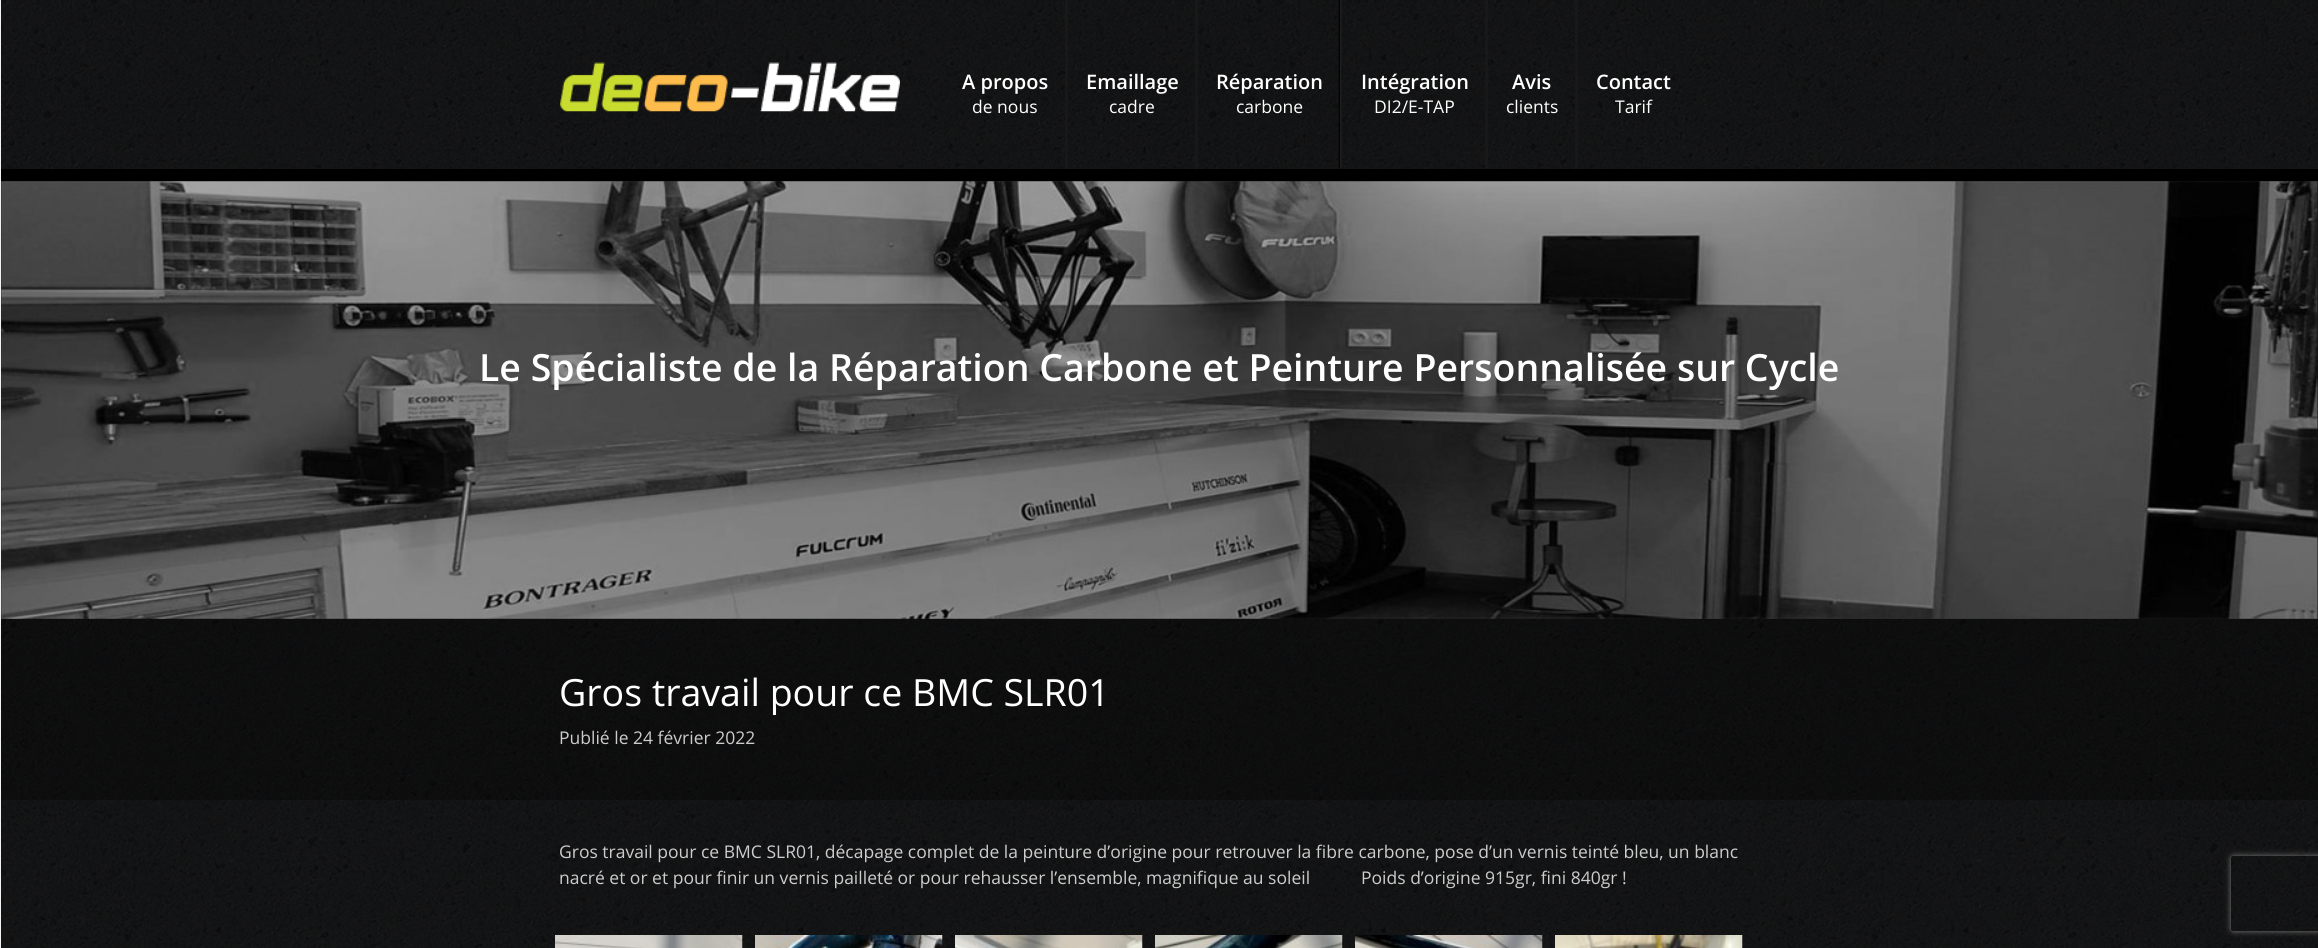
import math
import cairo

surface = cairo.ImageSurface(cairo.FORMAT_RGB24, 2318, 948)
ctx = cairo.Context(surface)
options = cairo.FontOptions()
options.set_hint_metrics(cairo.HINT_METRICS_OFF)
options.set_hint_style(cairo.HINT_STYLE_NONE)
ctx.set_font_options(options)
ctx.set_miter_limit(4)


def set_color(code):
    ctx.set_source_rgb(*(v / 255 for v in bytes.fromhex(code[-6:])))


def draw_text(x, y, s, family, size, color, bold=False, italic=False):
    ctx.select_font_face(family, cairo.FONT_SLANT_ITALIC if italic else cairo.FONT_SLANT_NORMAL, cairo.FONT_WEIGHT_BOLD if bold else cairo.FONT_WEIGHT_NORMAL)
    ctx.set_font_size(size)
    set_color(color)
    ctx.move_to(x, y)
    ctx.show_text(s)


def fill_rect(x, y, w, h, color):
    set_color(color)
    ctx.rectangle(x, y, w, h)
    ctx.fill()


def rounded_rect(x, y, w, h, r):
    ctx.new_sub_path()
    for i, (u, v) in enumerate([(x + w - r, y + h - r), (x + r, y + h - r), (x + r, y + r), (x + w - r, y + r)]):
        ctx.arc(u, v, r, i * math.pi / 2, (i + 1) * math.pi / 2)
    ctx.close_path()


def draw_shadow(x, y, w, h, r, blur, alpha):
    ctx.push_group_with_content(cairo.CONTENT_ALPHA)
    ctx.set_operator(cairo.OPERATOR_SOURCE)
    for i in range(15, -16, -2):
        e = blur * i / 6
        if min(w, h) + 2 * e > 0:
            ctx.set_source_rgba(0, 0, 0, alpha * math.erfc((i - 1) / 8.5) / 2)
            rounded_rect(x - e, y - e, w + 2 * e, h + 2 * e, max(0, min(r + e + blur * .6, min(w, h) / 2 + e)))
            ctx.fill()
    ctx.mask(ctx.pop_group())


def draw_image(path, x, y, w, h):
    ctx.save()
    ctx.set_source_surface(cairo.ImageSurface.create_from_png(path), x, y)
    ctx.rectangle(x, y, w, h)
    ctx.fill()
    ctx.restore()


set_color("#ffffff")
ctx.paint()
draw_image("assets/img1.png", 1, 0, 2317, 948)
fill_rect(0, 0, 1, 948, "#f2f2f2")
fill_rect(1, 169, 2317, 12, "#000000")
draw_image("assets/img2.png", 560, 62, 340, 50)
draw_image("assets/img3.png", 1699, 15, 22, 25)
fill_rect(1065, 0, 3, 169, "#181818")
draw_text(962, 89, "A propos", "Open Sans SemiBold", 20, "#ffffff")
draw_text(972, 113, "de nous", "Open Sans", 17.5, "#ffffff")
fill_rect(1195, 0, 3, 169, "#181818")
draw_text(1086, 89, "Emaillage", "Open Sans SemiBold", 20, "#ffffff")
draw_text(1109, 113, "cadre", "Open Sans", 17.5, "#ffffff")
draw_image("assets/img4.png", 1338, 0, 4, 169)
draw_text(1216, 89, "Réparation", "Open Sans SemiBold", 20, "#ffffff")
draw_text(1236, 113, "carbone", "Open Sans", 17.5, "#ffffff")
fill_rect(1485, 0, 3, 169, "#181818")
draw_text(1361, 89, "Intégration", "Open Sans SemiBold", 20, "#ffffff")
draw_text(1374, 113, "DI2/E-TAP", "Open Sans", 17.5, "#ffffff")
fill_rect(1575, 0, 3, 169, "#181818")
draw_text(1512, 89, "Avis", "Open Sans SemiBold", 20, "#ffffff")
draw_text(1506, 113, "clients", "Open Sans", 17.5, "#ffffff")
draw_text(1596, 89, "Contact", "Open Sans SemiBold", 20, "#ffffff")
draw_text(1615, 113, "Tarif", "Open Sans", 17.5, "#ffffff")
draw_image("assets/img5.png", 1, 181, 2317, 438)
draw_text(479, 381, "Le Spécialiste de la Réparation Carbone et Peinture Personnalisée sur Cycle", "Open Sans SemiBold", 37.5, "#ffffff")
ctx.set_source_rgba(0, 0, 0, 0.3)
ctx.rectangle(1, 619, 2317, 181)
ctx.fill()
draw_text(559, 706, "Gros travail pour ce BMC SLR01", "Open Sans", 37.5, "#ffffff")
draw_text(559, 744, "Publié le 24 février 2022", "Open Sans", 17.5, "#cccccc")
draw_text(559, 858, "Gros travail pour ce BMC SLR01, décapage complet de la peinture d’origine pour retrouver la fibre carbone, pose d’un vernis teinté bleu, un blanc", "Open Sans", 17.5, "#cccccc")
draw_text(559, 884, "nacré et or et pour finir un vernis pailleté or pour rehausser l’ensemble, magnifique au soleil", "Open Sans", 17.5, "#cccccc")
draw_text(1361, 884, "Poids d’origine 915gr, fini 840gr !", "Open Sans", 17.5, "#cccccc")
draw_image("assets/img6.png", 555, 935, 188, 13)
draw_image("assets/img7.png", 755, 935, 188, 13)
draw_image("assets/img8.png", 955, 935, 188, 13)
draw_image("assets/img9.png", 1155, 935, 188, 13)
draw_image("assets/img10.png", 1355, 935, 188, 13)
draw_image("assets/img11.png", 1555, 935, 188, 13)
ctx.save()
ctx.set_fill_rule(cairo.FILL_RULE_EVEN_ODD)
ctx.new_path()
ctx.move_to(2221, 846)
ctx.line_to(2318, 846)
ctx.line_to(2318, 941)
ctx.line_to(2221, 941)
ctx.close_path()
ctx.move_to(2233.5, 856)
ctx.line_to(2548.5, 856)
ctx.curve_to(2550, 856, 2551, 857, 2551, 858.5)
ctx.line_to(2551, 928.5)
ctx.curve_to(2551, 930, 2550, 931, 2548.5, 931)
ctx.line_to(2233.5, 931)
ctx.curve_to(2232, 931, 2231, 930, 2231, 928.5)
ctx.line_to(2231, 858.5)
ctx.curve_to(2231, 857, 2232, 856, 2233.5, 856)
ctx.close_path()
ctx.clip()
set_color("#808080")
draw_shadow(2231, 856, 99, 75, 2.5, 3, 1)
ctx.restore()
surface.write_to_png("output.png")
